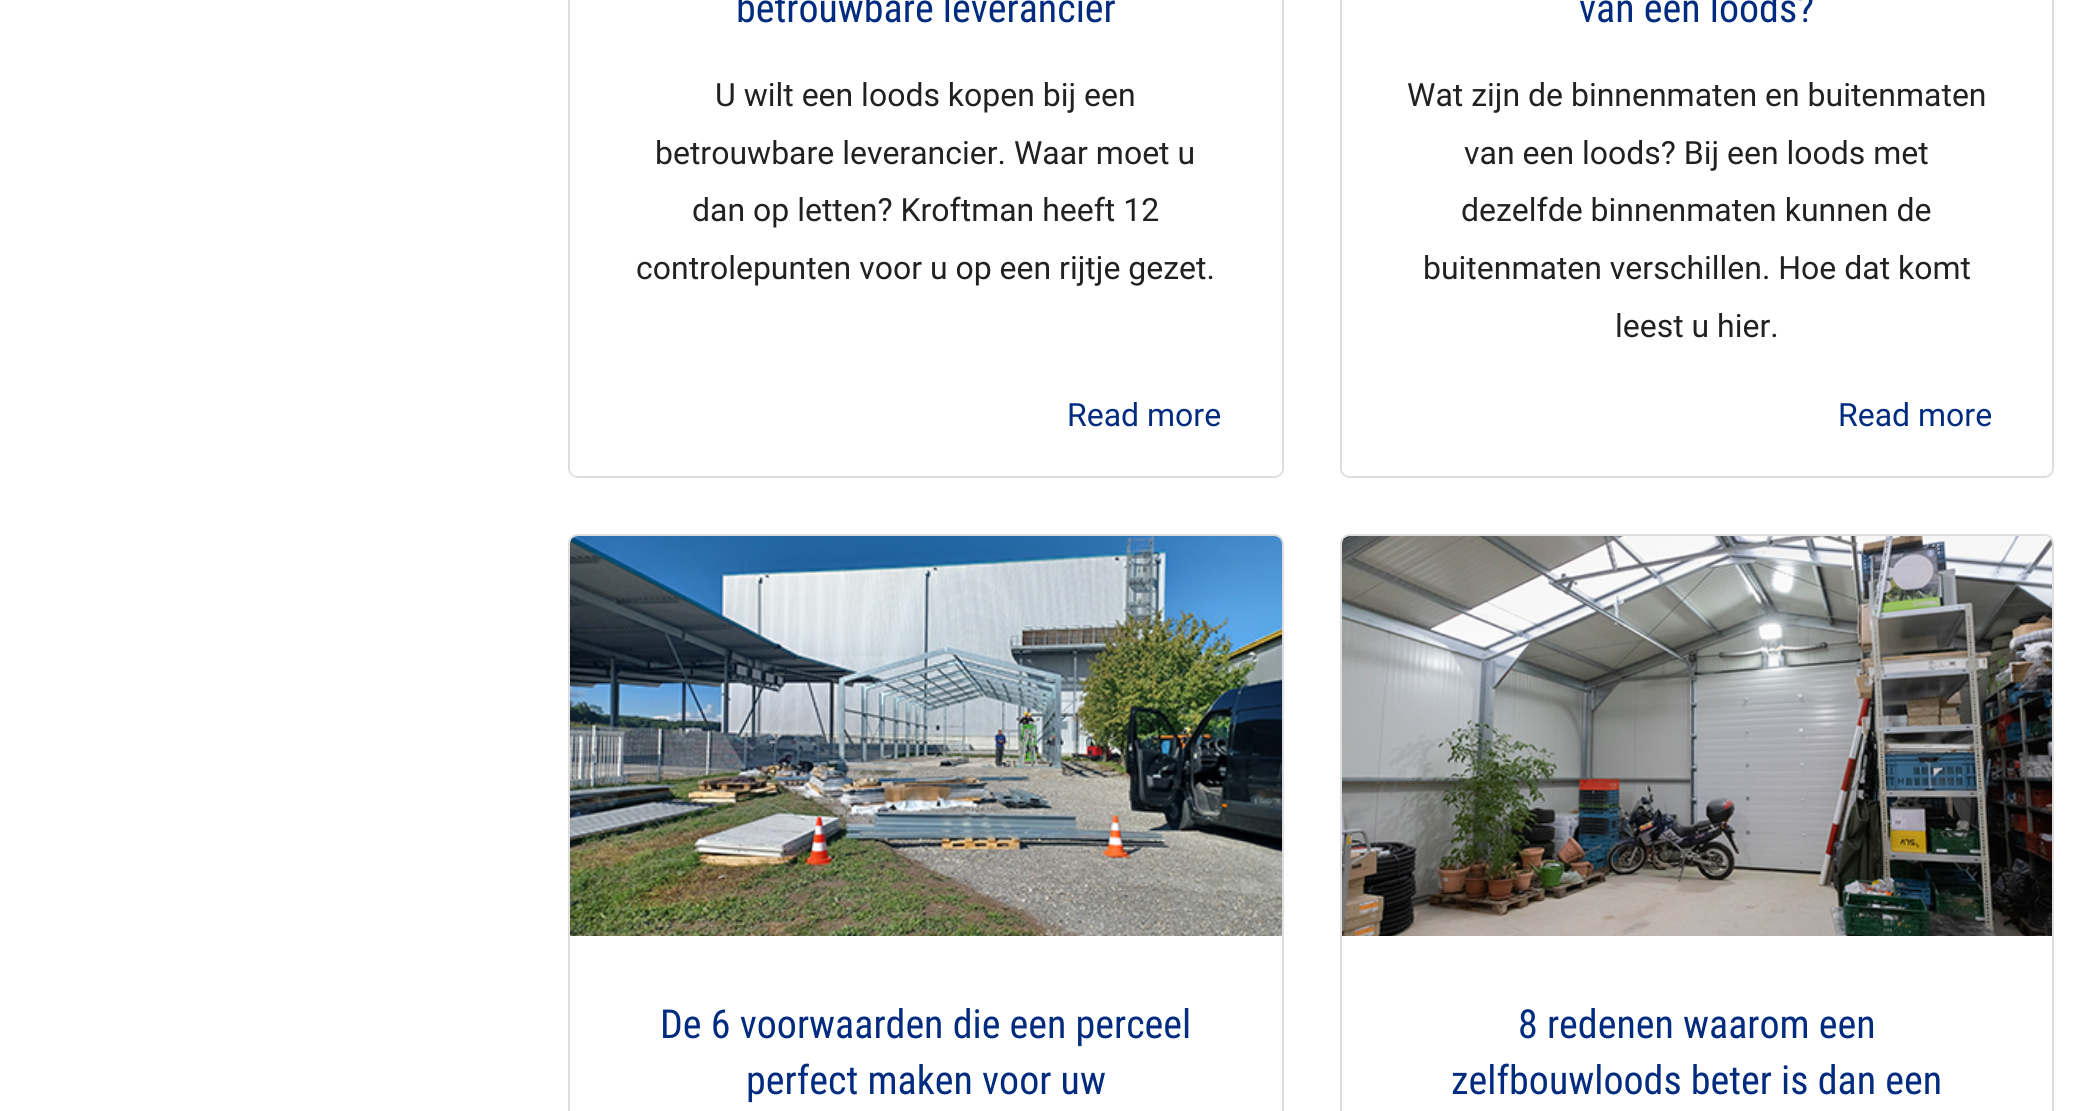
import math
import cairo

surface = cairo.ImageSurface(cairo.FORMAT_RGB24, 2082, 1111)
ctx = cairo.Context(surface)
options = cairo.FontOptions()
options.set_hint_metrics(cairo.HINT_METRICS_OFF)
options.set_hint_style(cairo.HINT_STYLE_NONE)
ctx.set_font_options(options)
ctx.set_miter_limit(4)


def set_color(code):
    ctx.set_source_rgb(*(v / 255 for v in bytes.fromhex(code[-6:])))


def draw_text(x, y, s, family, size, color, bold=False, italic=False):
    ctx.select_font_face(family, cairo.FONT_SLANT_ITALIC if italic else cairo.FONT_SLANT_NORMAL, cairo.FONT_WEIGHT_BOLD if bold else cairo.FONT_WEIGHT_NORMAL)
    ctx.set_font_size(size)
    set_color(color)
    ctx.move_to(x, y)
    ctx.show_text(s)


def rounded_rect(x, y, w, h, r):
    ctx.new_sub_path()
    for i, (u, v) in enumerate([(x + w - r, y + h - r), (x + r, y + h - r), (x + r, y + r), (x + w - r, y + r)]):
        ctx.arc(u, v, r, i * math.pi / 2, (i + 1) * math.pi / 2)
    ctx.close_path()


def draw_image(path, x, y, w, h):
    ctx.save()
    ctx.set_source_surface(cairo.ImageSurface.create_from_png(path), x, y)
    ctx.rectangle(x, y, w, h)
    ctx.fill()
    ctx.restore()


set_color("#ffffff")
ctx.paint()
rounded_rect(569, -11, 714, 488, 9)
set_color("#dedede")
ctx.stroke()
set_color("#ffffff")
rounded_rect(570, -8, 712, 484, 8)
ctx.fill()
draw_text(736, 22, "betrouwbare leverancier", "Roboto Condensed", 40, "#002b7f")
draw_text(715, 106, "U wilt een loods kopen bij een", "Roboto", 32, "#212121")
draw_text(655, 164, "betrouwbare leverancier. Waar moet u", "Roboto", 32, "#212121")
draw_text(692, 221, "dan op letten? Kroftman heeft 12", "Roboto", 32, "#212121")
draw_text(636, 279, "controlepunten voor u op een rijtje gezet.", "Roboto", 32, "#212121")
draw_text(1067, 426, "Read more", "Roboto", 32, "#002b7f")
rounded_rect(1341, -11, 712, 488, 9)
set_color("#dedede")
ctx.stroke()
set_color("#ffffff")
rounded_rect(1342, -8, 710, 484, 8)
ctx.fill()
draw_text(1579, 22, "van een loods?", "Roboto Condensed", 40, "#002b7f")
draw_text(1407, 106, "Wat zijn de binnenmaten en buitenmaten", "Roboto", 32, "#212121")
draw_text(1464, 164, "van een loods? Bij een loods met", "Roboto", 32, "#212121")
draw_text(1461, 221, "dezelfde binnenmaten kunnen de", "Roboto", 32, "#212121")
draw_text(1423, 279, "buitenmaten verschillen. Hoe dat komt", "Roboto", 32, "#212121")
draw_text(1615, 337, "leest u hier.", "Roboto", 32, "#212121")
draw_text(1838, 426, "Read more", "Roboto", 32, "#002b7f")
rounded_rect(569, 535, 714, 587, 9)
set_color("#dedede")
ctx.stroke()
set_color("#ffffff")
rounded_rect(570, 536, 712, 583, 8)
ctx.fill()
draw_image("assets/img1.png", 570, 536, 712, 400)
draw_text(660, 1038, "De 6 voorwaarden die een perceel", "Roboto Condensed", 40, "#002b7f")
draw_text(746, 1094, "perfect maken voor uw", "Roboto Condensed", 40, "#002b7f")
rounded_rect(1341, 535, 712, 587, 9)
set_color("#dedede")
ctx.stroke()
set_color("#ffffff")
rounded_rect(1342, 536, 710, 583, 8)
ctx.fill()
draw_image("assets/img2.png", 1342, 536, 710, 400)
draw_text(1518, 1038, "8 redenen waarom een", "Roboto Condensed", 40, "#002b7f")
draw_text(1451, 1094, "zelfbouwloods beter is dan een", "Roboto Condensed", 40, "#002b7f")
surface.write_to_png("output.png")
